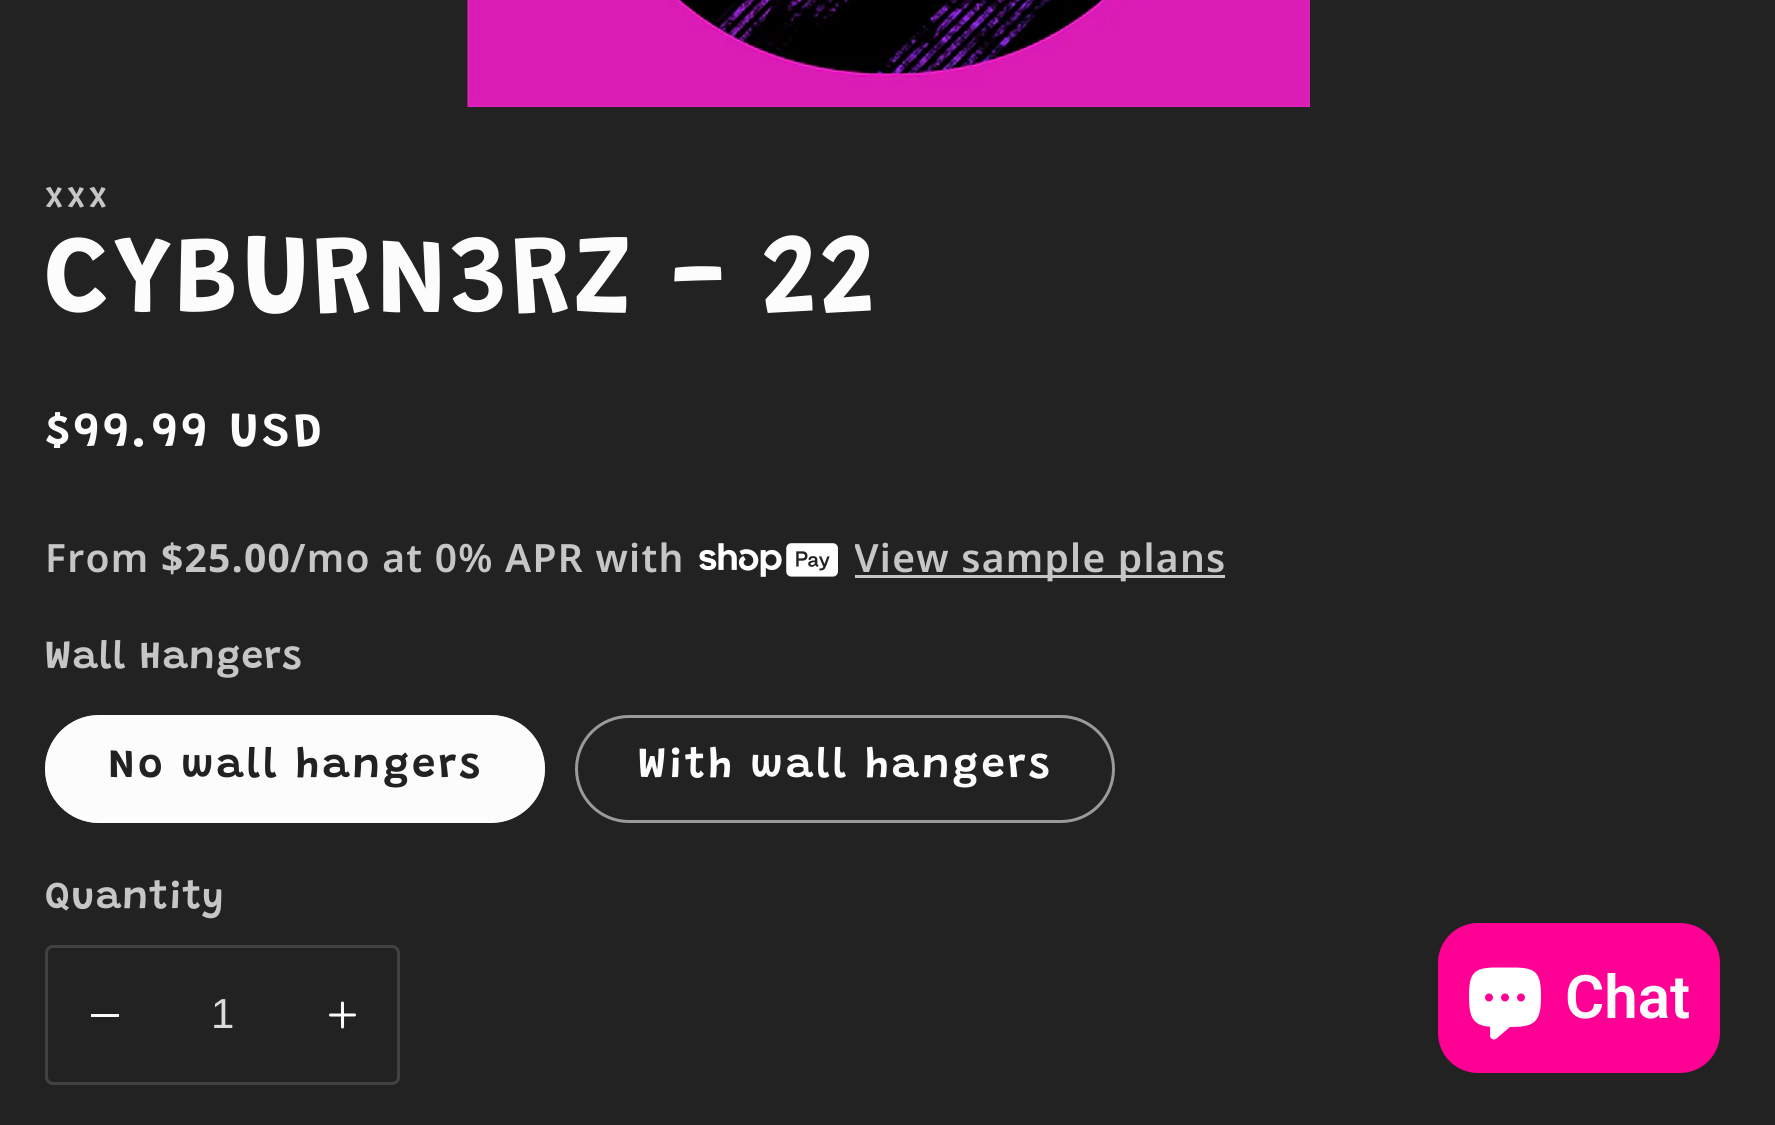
import math
import cairo

surface = cairo.ImageSurface(cairo.FORMAT_RGB24, 1775, 1125)
ctx = cairo.Context(surface)
options = cairo.FontOptions()
options.set_hint_metrics(cairo.HINT_METRICS_OFF)
options.set_hint_style(cairo.HINT_STYLE_NONE)
ctx.set_font_options(options)
ctx.set_miter_limit(4)


def set_color(code):
    ctx.set_source_rgb(*(v / 255 for v in bytes.fromhex(code[-6:])))


def draw_text(x, y, s, family, size, color, bold=False, italic=False):
    ctx.select_font_face(family, cairo.FONT_SLANT_ITALIC if italic else cairo.FONT_SLANT_NORMAL, cairo.FONT_WEIGHT_BOLD if bold else cairo.FONT_WEIGHT_NORMAL)
    ctx.set_font_size(size)
    set_color(color)
    ctx.move_to(x, y)
    ctx.show_text(s)


def draw_spaced(x, y, s, letter, word):
    ctx.move_to(x, y)
    for ch in s:
        ctx.show_text(ch)
        ctx.rel_move_to(letter + word * (ch == ' '), 0)


def fill_rect(x, y, w, h, color):
    set_color(color)
    ctx.rectangle(x, y, w, h)
    ctx.fill()


def rounded_rect(x, y, w, h, r):
    ctx.new_sub_path()
    for i, (u, v) in enumerate([(x + w - r, y + h - r), (x + r, y + h - r), (x + r, y + r), (x + w - r, y + r)]):
        ctx.arc(u, v, r, i * math.pi / 2, (i + 1) * math.pi / 2)
    ctx.close_path()


def draw_image(path, x, y, w, h):
    ctx.save()
    ctx.set_source_surface(cairo.ImageSurface.create_from_png(path), x, y)
    ctx.rectangle(x, y, w, h)
    ctx.fill()
    ctx.restore()


set_color("#222222")
ctx.paint()
draw_image("assets/img1.png", 467, 0, 843, 107)
ctx.select_font_face("Grandstander SemiBold")
ctx.set_font_size(30)
set_color("#c6c6c6")
draw_spaced(45, 207, "XXX", 3.9, 0)
ctx.set_font_size(112.5)
set_color("#fcfcfc")
draw_spaced(45, 312, "CYBURN3RZ - 22", 2.25, 0)
ctx.set_font_size(48)
draw_spaced(45, 446, "$99.99 USD", 3.9, 0)
ctx.select_font_face("Noto Sans SemiBold")
ctx.set_font_size(39)
set_color("#c6c6c6")
draw_spaced(45, 572, "From", 1.25, 0)
ctx.select_font_face("Noto Sans", cairo.FONT_SLANT_NORMAL, cairo.FONT_WEIGHT_BOLD)
draw_spaced(161, 572, "$25.00", 1.25, 0)
ctx.select_font_face("Noto Sans SemiBold")
draw_spaced(290, 572, "/mo at 0% APR with", 1.25, 0)
draw_image("assets/img2.png", 699, 543, 139, 34)
fill_rect(855, 575, 370, 3, "#c6c6c6")
ctx.save()
ctx.rectangle(855, 530, 370, 58)
ctx.clip()
draw_spaced(854, 572, "View sample plans", 1.25, 0)
ctx.restore()
ctx.select_font_face("Grandstander SemiBold")
draw_spaced(45, 668, "Wall Hangers", 1.25, 0)
set_color("#fcfcfc")
rounded_rect(45, 715, 500, 108, 54)
ctx.fill()
rounded_rect(46.5, 716.5, 497, 105, 52.5)
ctx.set_source_rgba(0.988, 0.988, 0.988, 0.55)
ctx.set_line_width(3)
ctx.stroke()
ctx.set_font_size(42)
set_color("#222222")
draw_spaced(108, 777, "No wall hangers", 3, 0)
rounded_rect(576.5, 716.5, 537, 105, 52.5)
set_color("#9a9a9a")
ctx.stroke()
set_color("#fcfcfc")
draw_spaced(638, 777, "With wall hangers", 3, 0)
ctx.set_font_size(39)
set_color("#c6c6c6")
draw_spaced(45, 908, "Quantity", 1.25, 0)
fill_rect(91, 1014, 28, 3, "#fcfcfc")
draw_image("assets/img3.png", 329, 1001, 27, 28)
rounded_rect(46.5, 946.5, 352, 137, 6.5)
ctx.set_source_rgba(0.988, 0.988, 0.988, 0.15)
ctx.stroke()
draw_text(211, 1028, "1", "Liberation Sans", 42, "#dbdbdb")
set_color("#ff0094")
rounded_rect(1438, 923, 282, 150, 40)
ctx.fill()
draw_image("assets/img4.png", 1469, 967, 72, 73)
draw_text(1565, 1018, "Chat", "Roboto SemiBold", 60, "#fcfcfc")
surface.write_to_png("output.png")
